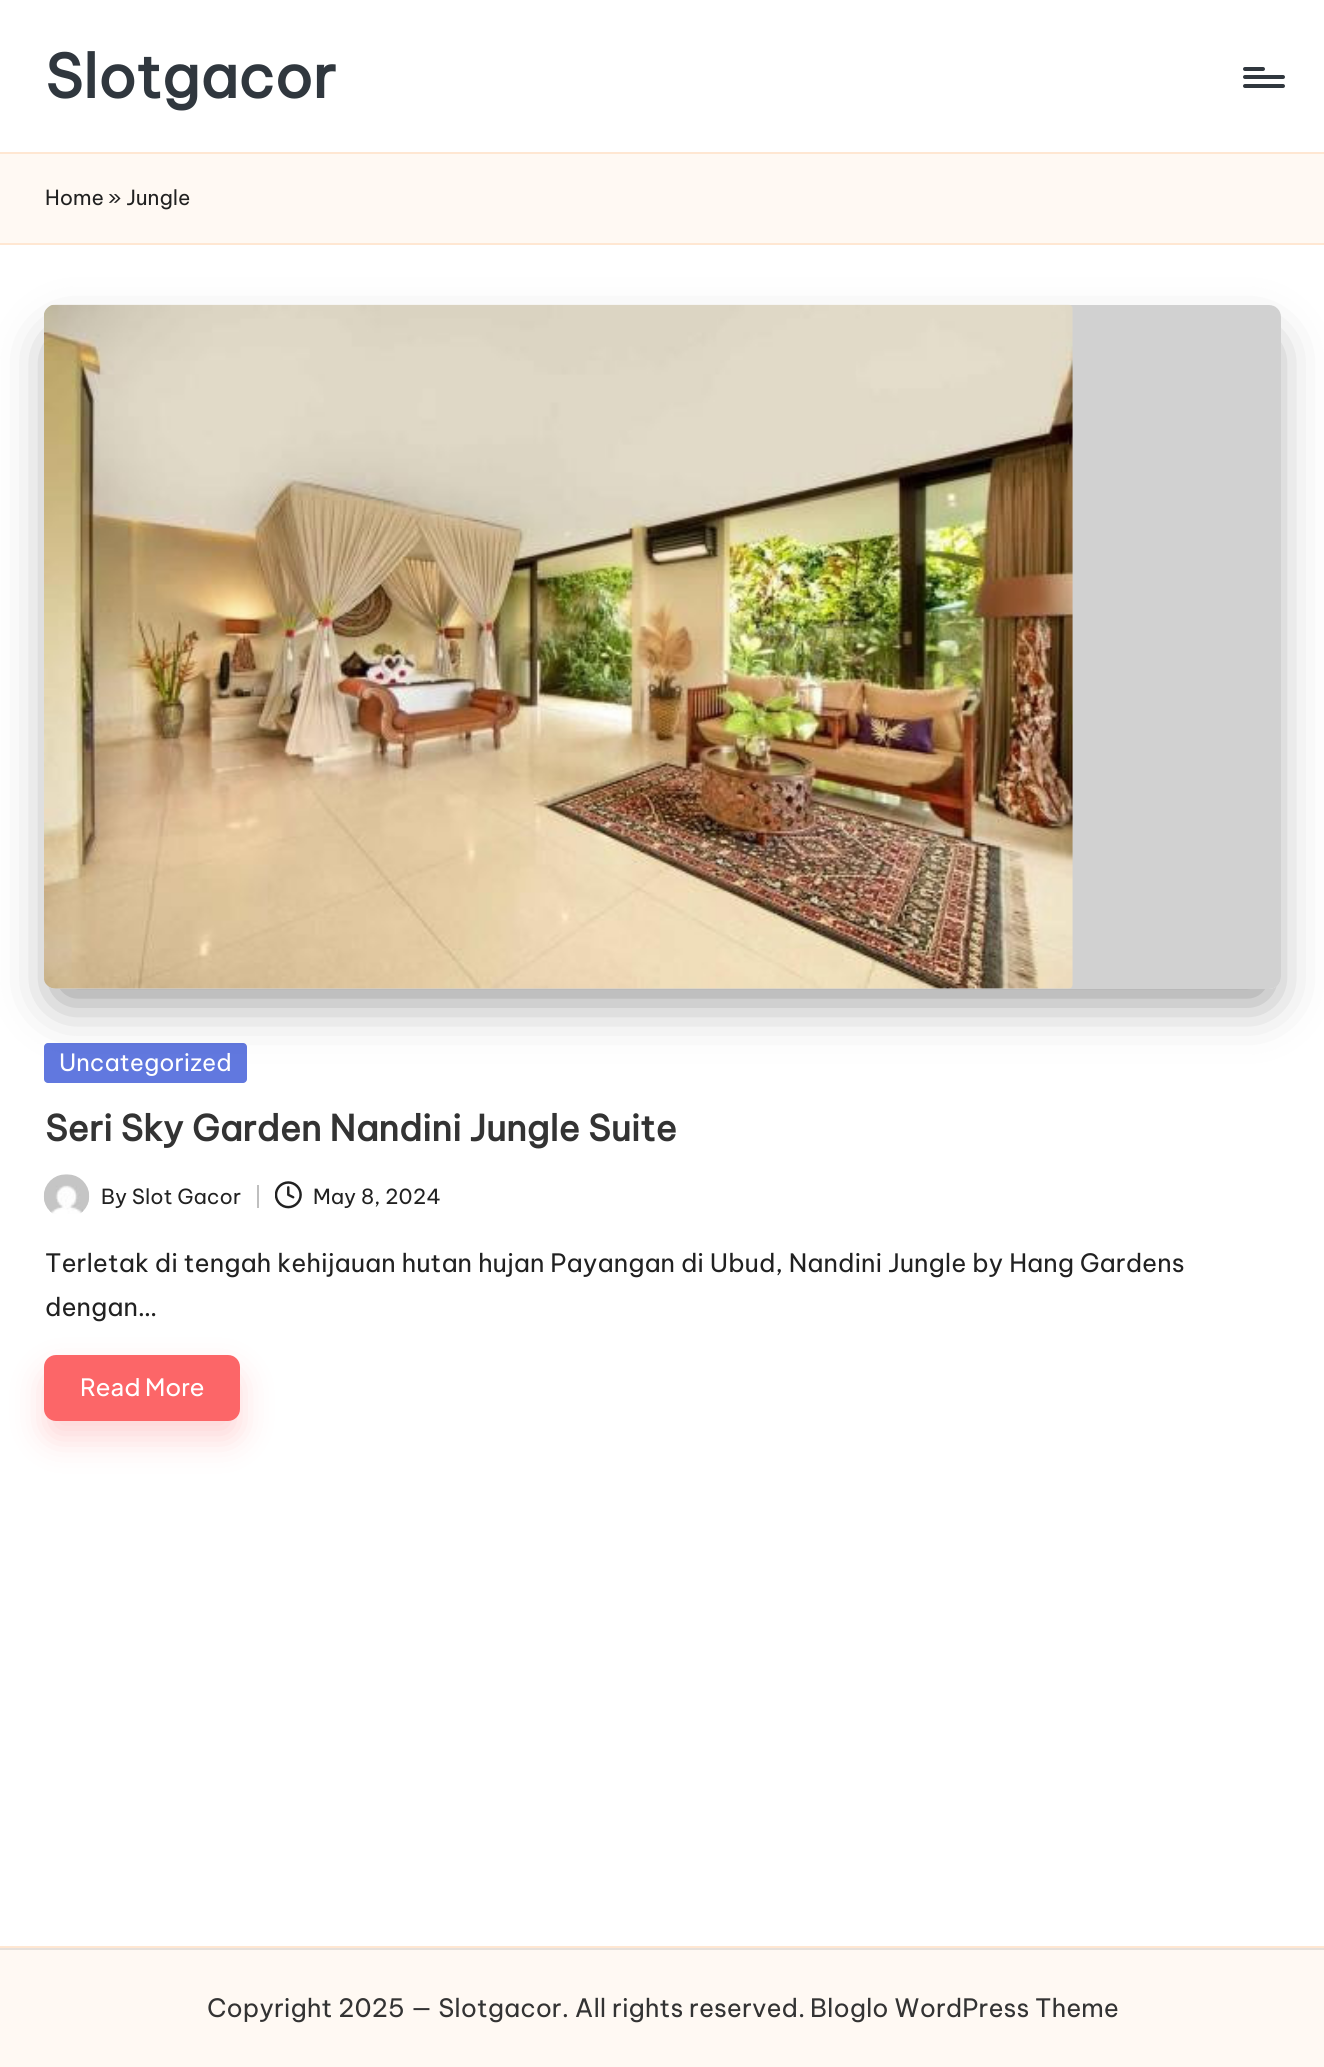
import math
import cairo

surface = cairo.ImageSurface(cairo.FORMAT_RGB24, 1324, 2067)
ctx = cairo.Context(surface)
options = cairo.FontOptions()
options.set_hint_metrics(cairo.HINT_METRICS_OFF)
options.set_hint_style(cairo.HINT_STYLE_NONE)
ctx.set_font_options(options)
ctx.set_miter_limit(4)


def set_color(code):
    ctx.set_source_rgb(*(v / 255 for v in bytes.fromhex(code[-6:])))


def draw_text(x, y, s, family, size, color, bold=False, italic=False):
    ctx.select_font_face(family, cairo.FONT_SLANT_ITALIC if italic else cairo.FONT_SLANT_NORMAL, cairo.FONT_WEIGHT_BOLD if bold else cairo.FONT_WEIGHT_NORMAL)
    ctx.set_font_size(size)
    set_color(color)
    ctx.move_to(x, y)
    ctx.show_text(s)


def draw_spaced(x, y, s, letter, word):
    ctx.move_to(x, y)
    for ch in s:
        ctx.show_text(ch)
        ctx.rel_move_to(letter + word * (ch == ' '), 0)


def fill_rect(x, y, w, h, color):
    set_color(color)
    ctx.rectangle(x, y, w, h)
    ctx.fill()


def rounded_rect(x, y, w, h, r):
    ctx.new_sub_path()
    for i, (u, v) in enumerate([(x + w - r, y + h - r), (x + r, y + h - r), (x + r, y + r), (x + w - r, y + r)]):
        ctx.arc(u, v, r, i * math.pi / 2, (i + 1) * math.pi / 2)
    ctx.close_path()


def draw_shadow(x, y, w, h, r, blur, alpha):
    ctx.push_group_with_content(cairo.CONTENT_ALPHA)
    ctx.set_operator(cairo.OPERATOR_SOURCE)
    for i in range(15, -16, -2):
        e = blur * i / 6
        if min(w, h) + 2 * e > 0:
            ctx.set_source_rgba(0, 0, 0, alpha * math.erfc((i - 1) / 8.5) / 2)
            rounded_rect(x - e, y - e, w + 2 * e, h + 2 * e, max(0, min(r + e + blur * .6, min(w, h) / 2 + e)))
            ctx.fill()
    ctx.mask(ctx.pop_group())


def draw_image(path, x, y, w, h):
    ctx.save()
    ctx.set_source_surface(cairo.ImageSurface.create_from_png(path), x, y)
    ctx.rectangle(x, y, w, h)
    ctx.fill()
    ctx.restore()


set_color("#ffffff")
ctx.paint()
draw_text(45, 98, "Slotgacor", "Be Vietnam Pro", 59.5, "#30373e", bold=True)
rounded_rect(1243, 75, 42, 4, 2)
ctx.fill()
rounded_rect(1243, 67, 22, 4, 2)
ctx.fill()
rounded_rect(1243, 84, 42, 4, 2)
ctx.fill()
fill_rect(0, 154, 1324, 89, "#fff9f3")
fill_rect(0, 152, 1324, 2, "#ffe7d2")
fill_rect(0, 243, 1324, 2, "#ffe7d2")
draw_text(45, 205, "Home", "Be Vietnam Pro", 20.75, "#212121")
draw_text(108, 205, "» Jungle", "Be Vietnam Pro", 20.75, "#212121")
set_color("#6178df")
rounded_rect(44, 1043, 203, 40, 4)
ctx.fill()
ctx.save()
ctx.set_fill_rule(cairo.FILL_RULE_EVEN_ODD)
ctx.new_path()
ctx.move_to(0, 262)
ctx.line_to(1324, 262)
ctx.line_to(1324, 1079)
ctx.line_to(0, 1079)
ctx.close_path()
ctx.move_to(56, 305)
ctx.line_to(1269, 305)
ctx.curve_to(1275.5, 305, 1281, 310.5, 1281, 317)
ctx.line_to(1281, 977)
ctx.curve_to(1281, 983.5, 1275.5, 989, 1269, 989)
ctx.line_to(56, 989)
ctx.curve_to(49.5, 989, 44, 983.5, 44, 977)
ctx.line_to(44, 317)
ctx.curve_to(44, 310.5, 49.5, 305, 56, 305)
ctx.close_path()
ctx.clip()
set_color("#000000")
draw_shadow(61, 347, 1203, 647, 0, 28, 0.5)
ctx.restore()
ctx.set_source_rgba(0, 0, 0, 0.18)
rounded_rect(44, 305, 1237, 684, 12)
ctx.fill()
draw_image("assets/img1.png", 44, 304, 1029, 685)
draw_text(59, 1071, "Uncategorized", "Be Vietnam Pro", 23.75, "#ffffff")
draw_text(45, 1141, "Seri Sky Garden Nandini Jungle Suite", "Be Vietnam Pro", 35.6, "#333333", bold=True)
draw_image("assets/img2.png", 43, 1174, 47, 40)
draw_text(101, 1204, "By Slot Gacor", "Be Vietnam Pro", 20.75, "#212121")
fill_rect(257, 1185, 2, 23, "#bfbfbf")
draw_image("assets/img3.png", 275, 1181, 27, 28)
draw_text(313, 1204, "May 8, 2024", "Be Vietnam Pro", 20.75, "#212121")
draw_text(45, 1272, "Terletak di tengah kehijauan hutan hujan Payangan di Ubud, Nandini Jungle by Hang Gardens", "Be Vietnam Pro", 25.25, "#212121")
draw_text(45, 1316, "dengan…", "Be Vietnam Pro", 25.25, "#212121")
set_color("#fc6668")
draw_shadow(44, 1372, 196, 67, 12, 16, 0.27)
set_color("#fc6668")
rounded_rect(44, 1355, 196, 66, 12)
ctx.fill()
ctx.select_font_face("Plus Jakarta Sans Medium")
ctx.set_font_size(23.75)
set_color("#ffffff")
draw_spaced(80, 1396, "Read More", 0.25, 0)
fill_rect(0, 1950, 1324, 117, "#fff9f3")
fill_rect(0, 1946, 1324, 2, "#ffe7d2")
fill_rect(0, 1948, 1324, 2, "#e6e0db")
draw_text(207, 2017, "Copyright 2025 — Slotgacor. All rights reserved.", "Be Vietnam Pro", 25.25, "#333333")
draw_text(810, 2017, "Bloglo WordPress Theme", "Be Vietnam Pro", 25.25, "#333333")
surface.write_to_png("output.png")
